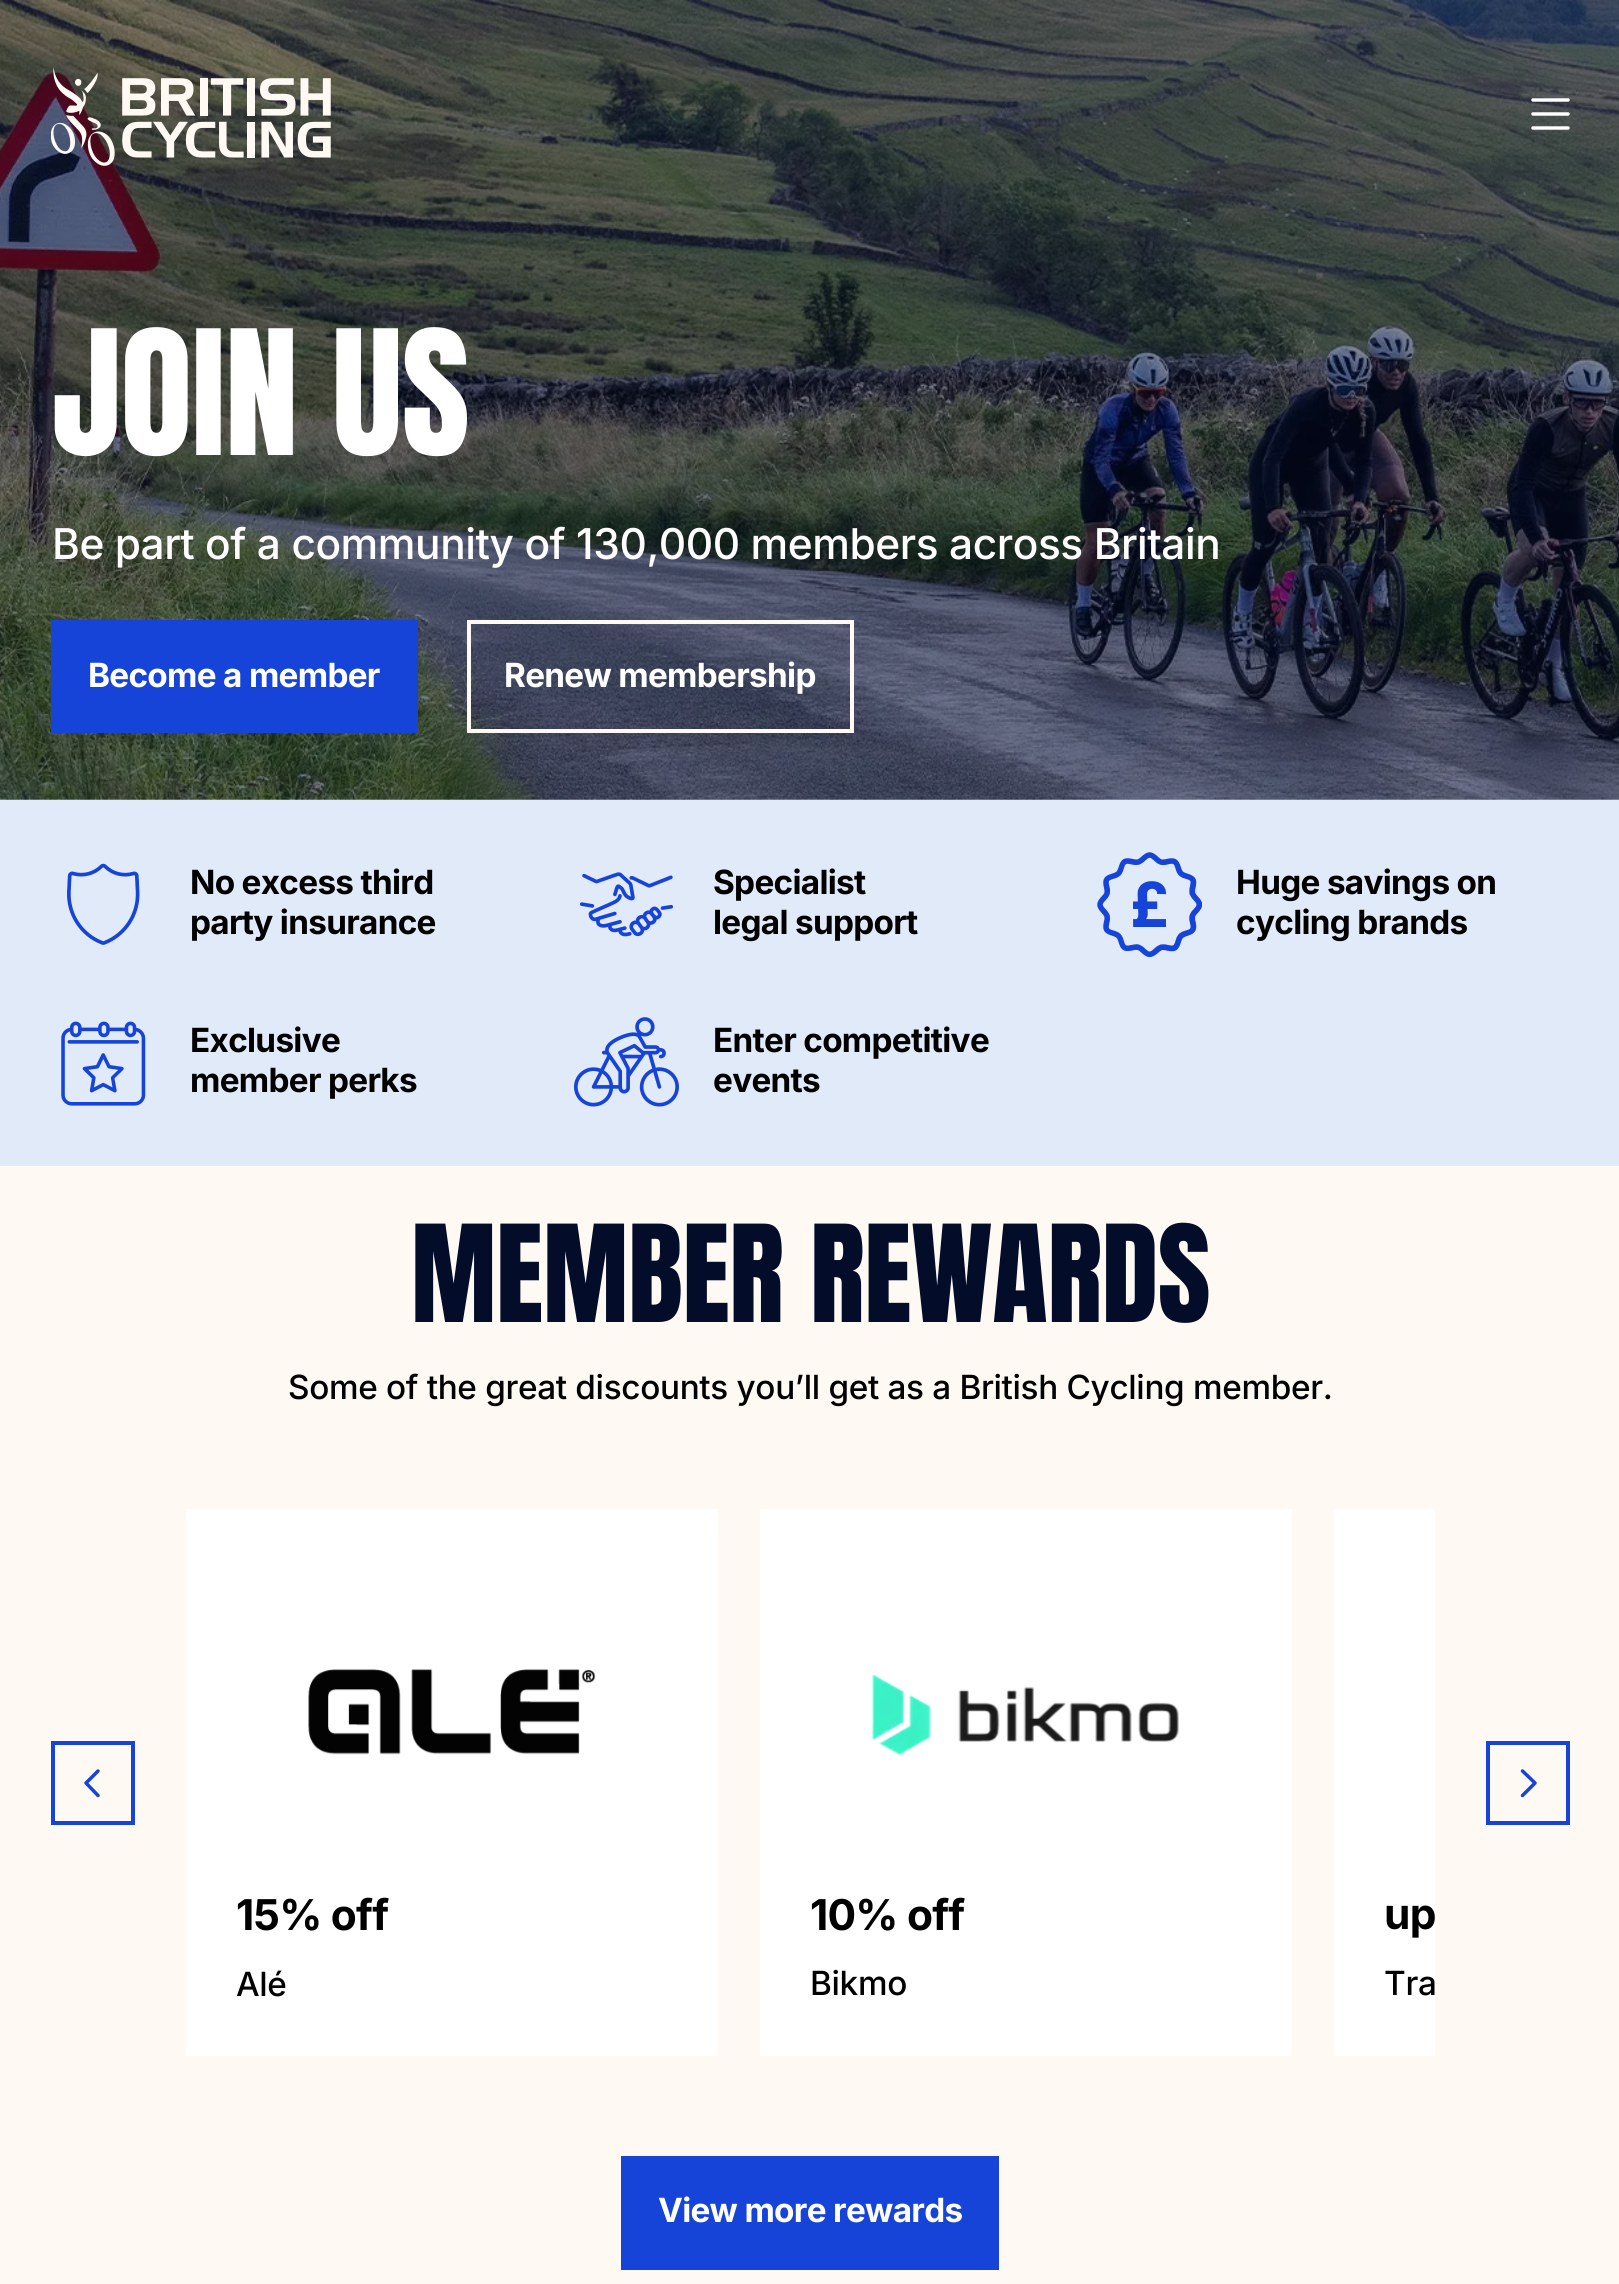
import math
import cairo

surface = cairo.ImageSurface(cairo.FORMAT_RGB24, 1619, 2284)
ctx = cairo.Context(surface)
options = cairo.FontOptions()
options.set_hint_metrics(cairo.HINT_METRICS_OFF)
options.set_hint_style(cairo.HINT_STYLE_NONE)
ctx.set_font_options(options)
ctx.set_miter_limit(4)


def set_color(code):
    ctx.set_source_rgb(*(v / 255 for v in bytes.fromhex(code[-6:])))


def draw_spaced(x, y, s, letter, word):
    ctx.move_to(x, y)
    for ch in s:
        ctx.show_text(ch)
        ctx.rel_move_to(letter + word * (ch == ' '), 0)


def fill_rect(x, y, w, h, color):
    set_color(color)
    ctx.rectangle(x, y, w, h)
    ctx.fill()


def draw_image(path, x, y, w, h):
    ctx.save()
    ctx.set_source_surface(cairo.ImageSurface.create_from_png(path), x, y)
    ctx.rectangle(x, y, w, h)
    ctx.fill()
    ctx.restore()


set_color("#ffffff")
ctx.paint()
draw_image("assets/img2.png", 0, 0, 1619, 800)
draw_image("assets/img1.png", 51, 67, 280, 99)
ctx.new_path()
ctx.move_to(1533, 100)
ctx.line_to(1568, 100)
ctx.move_to(1533, 114)
ctx.line_to(1568, 114)
ctx.move_to(1533, 128)
ctx.line_to(1568, 128)
set_color("#ffffff")
ctx.set_line_width(3.5)
ctx.set_line_cap(cairo.LINE_CAP_ROUND)
ctx.set_line_join(cairo.LINE_JOIN_ROUND)
ctx.stroke()
ctx.select_font_face("Anton")
ctx.set_font_size(147.5)
draw_spaced(52, 455, "JOIN US", -0.33, 0)
ctx.select_font_face("Inter Medium")
ctx.set_font_size(42.4)
draw_spaced(52, 559, "Be part of a community of 130,000 members across Britain", -0.42, 0)
fill_rect(51, 620, 367, 113, "#1744d8")
ctx.select_font_face("Inter", cairo.FONT_SLANT_NORMAL, cairo.FONT_WEIGHT_BOLD)
ctx.set_font_size(33.3)
set_color("#ffffff")
draw_spaced(88, 687, "Become a member", -0.7, 0)
ctx.rectangle(469, 622, 383, 109)
set_color("#fef9f3")
ctx.set_line_width(4)
ctx.set_line_cap(cairo.LINE_CAP_BUTT)
ctx.set_line_join(cairo.LINE_JOIN_MITER)
ctx.stroke()
set_color("#ffffff")
draw_spaced(504, 687, "Renew membership", -0.7, 0)
fill_rect(0, 800, 1619, 366, "#e1eaf9")
draw_image("assets/img3.png", 67, 863, 73, 82)
set_color("#000000")
draw_spaced(190, 894, "No excess third", -0.7, 0)
draw_spaced(190, 934, "party insurance", -0.7, 0)
draw_image("assets/img4.png", 579, 872, 95, 65)
draw_spaced(713, 894, "Specialist", -0.7, 0)
draw_spaced(713, 934, "legal support", -0.7, 0)
draw_image("assets/img5.png", 1097, 852, 105, 105)
draw_spaced(1236, 894, "Huge savings on", -0.7, 0)
draw_spaced(1236, 934, "cycling brands", -0.7, 0)
draw_image("assets/img6.png", 61, 1021, 85, 85)
draw_spaced(190, 1052, "Exclusive", -0.7, 0)
draw_spaced(190, 1092, "member perks", -0.7, 0)
draw_image("assets/img7.png", 574, 1017, 105, 90)
draw_spaced(713, 1052, "Enter competitive", -0.7, 0)
draw_spaced(713, 1092, "events", -0.7, 0)
fill_rect(0, 1166, 1619, 1118, "#fef9f3")
ctx.select_font_face("Anton")
ctx.set_font_size(114.5)
set_color("#030c29")
draw_spaced(411, 1322, "MEMBER REWARDS", -0.33, 0)
ctx.select_font_face("Inter Medium")
ctx.set_font_size(33.3)
set_color("#000000")
draw_spaced(288, 1399, "Some of the great discounts you’ll get as a British Cycling member.", -0.33, 0)
ctx.rectangle(53, 1743, 80, 80)
set_color("#1744d8")
ctx.stroke()
ctx.new_path()
ctx.move_to(98, 1795.5)
ctx.line_to(86, 1783)
ctx.line_to(98, 1771)
ctx.set_line_width(3.5)
ctx.set_line_cap(cairo.LINE_CAP_ROUND)
ctx.set_line_join(cairo.LINE_JOIN_ROUND)
ctx.stroke()
ctx.rectangle(1488, 1743, 80, 80)
ctx.set_line_width(4)
ctx.set_line_cap(cairo.LINE_CAP_BUTT)
ctx.set_line_join(cairo.LINE_JOIN_MITER)
ctx.stroke()
ctx.new_path()
ctx.move_to(1522.5, 1771)
ctx.line_to(1535, 1783)
ctx.line_to(1522.5, 1795.5)
ctx.set_line_width(3.5)
ctx.set_line_cap(cairo.LINE_CAP_ROUND)
ctx.set_line_join(cairo.LINE_JOIN_ROUND)
ctx.stroke()
fill_rect(186, 1509, 532, 547, "#ffffff")
draw_image("assets/img8.png", 308, 1669, 288, 86)
ctx.select_font_face("Inter", cairo.FONT_SLANT_NORMAL, cairo.FONT_WEIGHT_BOLD)
ctx.set_font_size(42.4)
set_color("#000000")
draw_spaced(236, 1930, "15% off", -0.75, 0)
ctx.select_font_face("Inter Medium")
ctx.set_font_size(33.3)
draw_spaced(236, 1996, "Alé", -0.33, 0)
fill_rect(760, 1509, 532, 547, "#ffffff")
draw_image("assets/img9.png", 871, 1674, 308, 81)
ctx.select_font_face("Inter", cairo.FONT_SLANT_NORMAL, cairo.FONT_WEIGHT_BOLD)
ctx.set_font_size(42.4)
set_color("#000000")
draw_spaced(810, 1930, "10% off", -0.75, 0)
ctx.select_font_face("Inter Medium")
ctx.set_font_size(33.3)
draw_spaced(810, 1995, "Bikmo", -0.33, 0)
fill_rect(1334, 1509, 101, 547, "#ffffff")
ctx.select_font_face("Inter", cairo.FONT_SLANT_NORMAL, cairo.FONT_WEIGHT_BOLD)
ctx.set_font_size(42.4)
set_color("#000000")
draw_spaced(1384, 1929, "up", -0.75, 0)
ctx.select_font_face("Inter Medium")
ctx.set_font_size(33.3)
draw_spaced(1384, 1995, "Tra", -0.33, 0)
fill_rect(621, 2156, 378, 114, "#1744d8")
ctx.select_font_face("Inter", cairo.FONT_SLANT_NORMAL, cairo.FONT_WEIGHT_BOLD)
set_color("#ffffff")
draw_spaced(658, 2222, "View more rewards", -0.7, 0)
surface.write_to_png("output.png")
